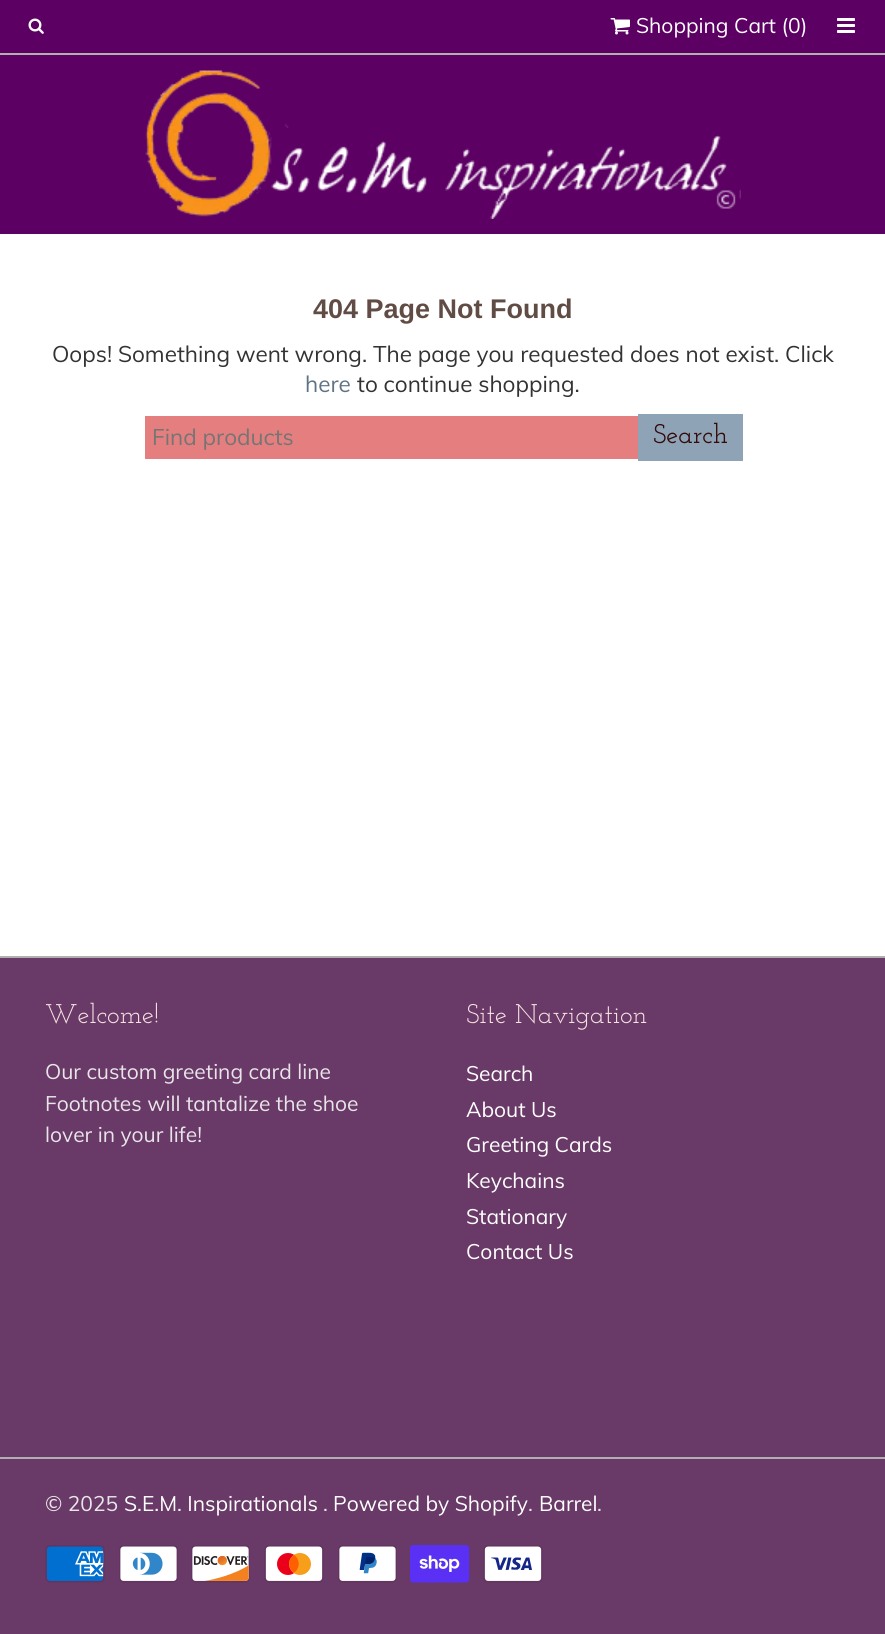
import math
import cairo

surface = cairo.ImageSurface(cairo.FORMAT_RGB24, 885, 1634)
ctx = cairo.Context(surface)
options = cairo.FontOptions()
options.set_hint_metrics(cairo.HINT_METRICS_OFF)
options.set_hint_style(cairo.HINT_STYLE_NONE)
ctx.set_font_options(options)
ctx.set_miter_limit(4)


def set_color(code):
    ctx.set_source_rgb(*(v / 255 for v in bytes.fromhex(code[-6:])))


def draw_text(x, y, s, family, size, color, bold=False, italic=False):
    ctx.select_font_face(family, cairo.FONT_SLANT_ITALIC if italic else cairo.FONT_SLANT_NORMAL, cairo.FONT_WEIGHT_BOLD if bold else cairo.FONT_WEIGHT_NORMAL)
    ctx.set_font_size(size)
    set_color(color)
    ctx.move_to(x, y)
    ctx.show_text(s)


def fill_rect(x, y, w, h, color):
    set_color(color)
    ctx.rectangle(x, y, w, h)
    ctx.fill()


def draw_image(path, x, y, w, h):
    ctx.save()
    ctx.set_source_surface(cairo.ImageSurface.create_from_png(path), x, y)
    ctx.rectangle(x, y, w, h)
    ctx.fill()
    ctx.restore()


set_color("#ffffff")
ctx.paint()
fill_rect(0, 0, 885, 234, "#5c0063")
fill_rect(0, 53, 885, 2, "#b0b0b0")
draw_image("assets/img1.png", 28, 18, 16, 16)
draw_image("assets/img2.png", 610, 18, 20, 17)
draw_text(636, 33, "Shopping Cart (0)", "Muli", 21, "#ffffff")
draw_image("assets/img3.png", 837, 18, 18, 15)
draw_image("assets/img4.png", 145, 70, 596, 149)
draw_text(313, 318, "404 Page Not Found", "Liberation Sans", 27, "#604c44", bold=True)
draw_text(52, 362, "Oops! Something went wrong. The page you requested does not exist. Click", "Muli", 22.5, "#333333")
draw_text(305, 392, "here", "Muli", 22.5, "#5e7486")
draw_text(357, 392, "to continue shopping.", "Muli", 22.5, "#333333")
fill_rect(145, 416, 493, 43, "#e57e7e")
draw_text(152, 445, "Find products", "Muli", 22.5, "#757575")
fill_rect(638, 414, 105, 47, "#8ea4b6")
draw_text(653, 443, "Search", "Josefin Slab Medium", 27, "#320a0a")
fill_rect(0, 958, 885, 499, "#693967")
fill_rect(0, 956, 885, 2, "#b0b0b0")
draw_text(45, 1023, "Welcome!", "Josefin Slab", 27, "#f5e2e2")
draw_text(45, 1079, "Our custom greeting card line", "Muli", 21, "#e8e5e8")
draw_text(45, 1111, "Footnotes will tantalize the shoe", "Muli", 21, "#e8e5e8")
draw_text(45, 1142, "lover in your life!", "Muli", 21, "#e8e5e8")
draw_text(466, 1023, "Site Navigation", "Josefin Slab", 27, "#f5e2e2")
draw_text(466, 1081, "Search", "Muli", 21, "#ffffff")
draw_text(466, 1117, "About Us", "Muli", 21, "#ffffff")
draw_text(466, 1152, "Greeting Cards", "Muli", 21, "#ffffff")
draw_text(466, 1188, "Keychains", "Muli", 21, "#ffffff")
draw_text(466, 1224, "Stationary", "Muli", 21, "#ffffff")
draw_text(466, 1259, "Contact Us", "Muli", 21, "#ffffff")
fill_rect(0, 1459, 885, 175, "#693967")
fill_rect(0, 1457, 885, 2, "#b0b0b0")
draw_text(45, 1511, "© 2025", "Muli", 21, "#e8e5e8")
draw_text(124, 1511, "S.E.M. Inspirationals", "Muli", 21, "#ffffff")
draw_text(323, 1511, ".", "Muli", 21, "#e8e5e8")
draw_text(333, 1511, "Powered by Shopify", "Muli", 21, "#ffffff")
draw_text(528, 1511, ".", "Muli", 21, "#e8e5e8")
draw_text(539, 1511, "Barrel", "Muli", 21, "#ffffff")
draw_text(597, 1511, ".", "Muli", 21, "#e8e5e8")
draw_image("assets/img5.png", 45, 1545, 60, 38)
draw_image("assets/img6.png", 119, 1545, 59, 38)
draw_image("assets/img7.png", 191, 1545, 59, 38)
draw_image("assets/img8.png", 264, 1545, 60, 38)
draw_image("assets/img9.png", 338, 1545, 59, 38)
draw_image("assets/img10.png", 410, 1545, 60, 38)
draw_image("assets/img11.png", 483, 1545, 60, 38)
surface.write_to_png("output.png")
